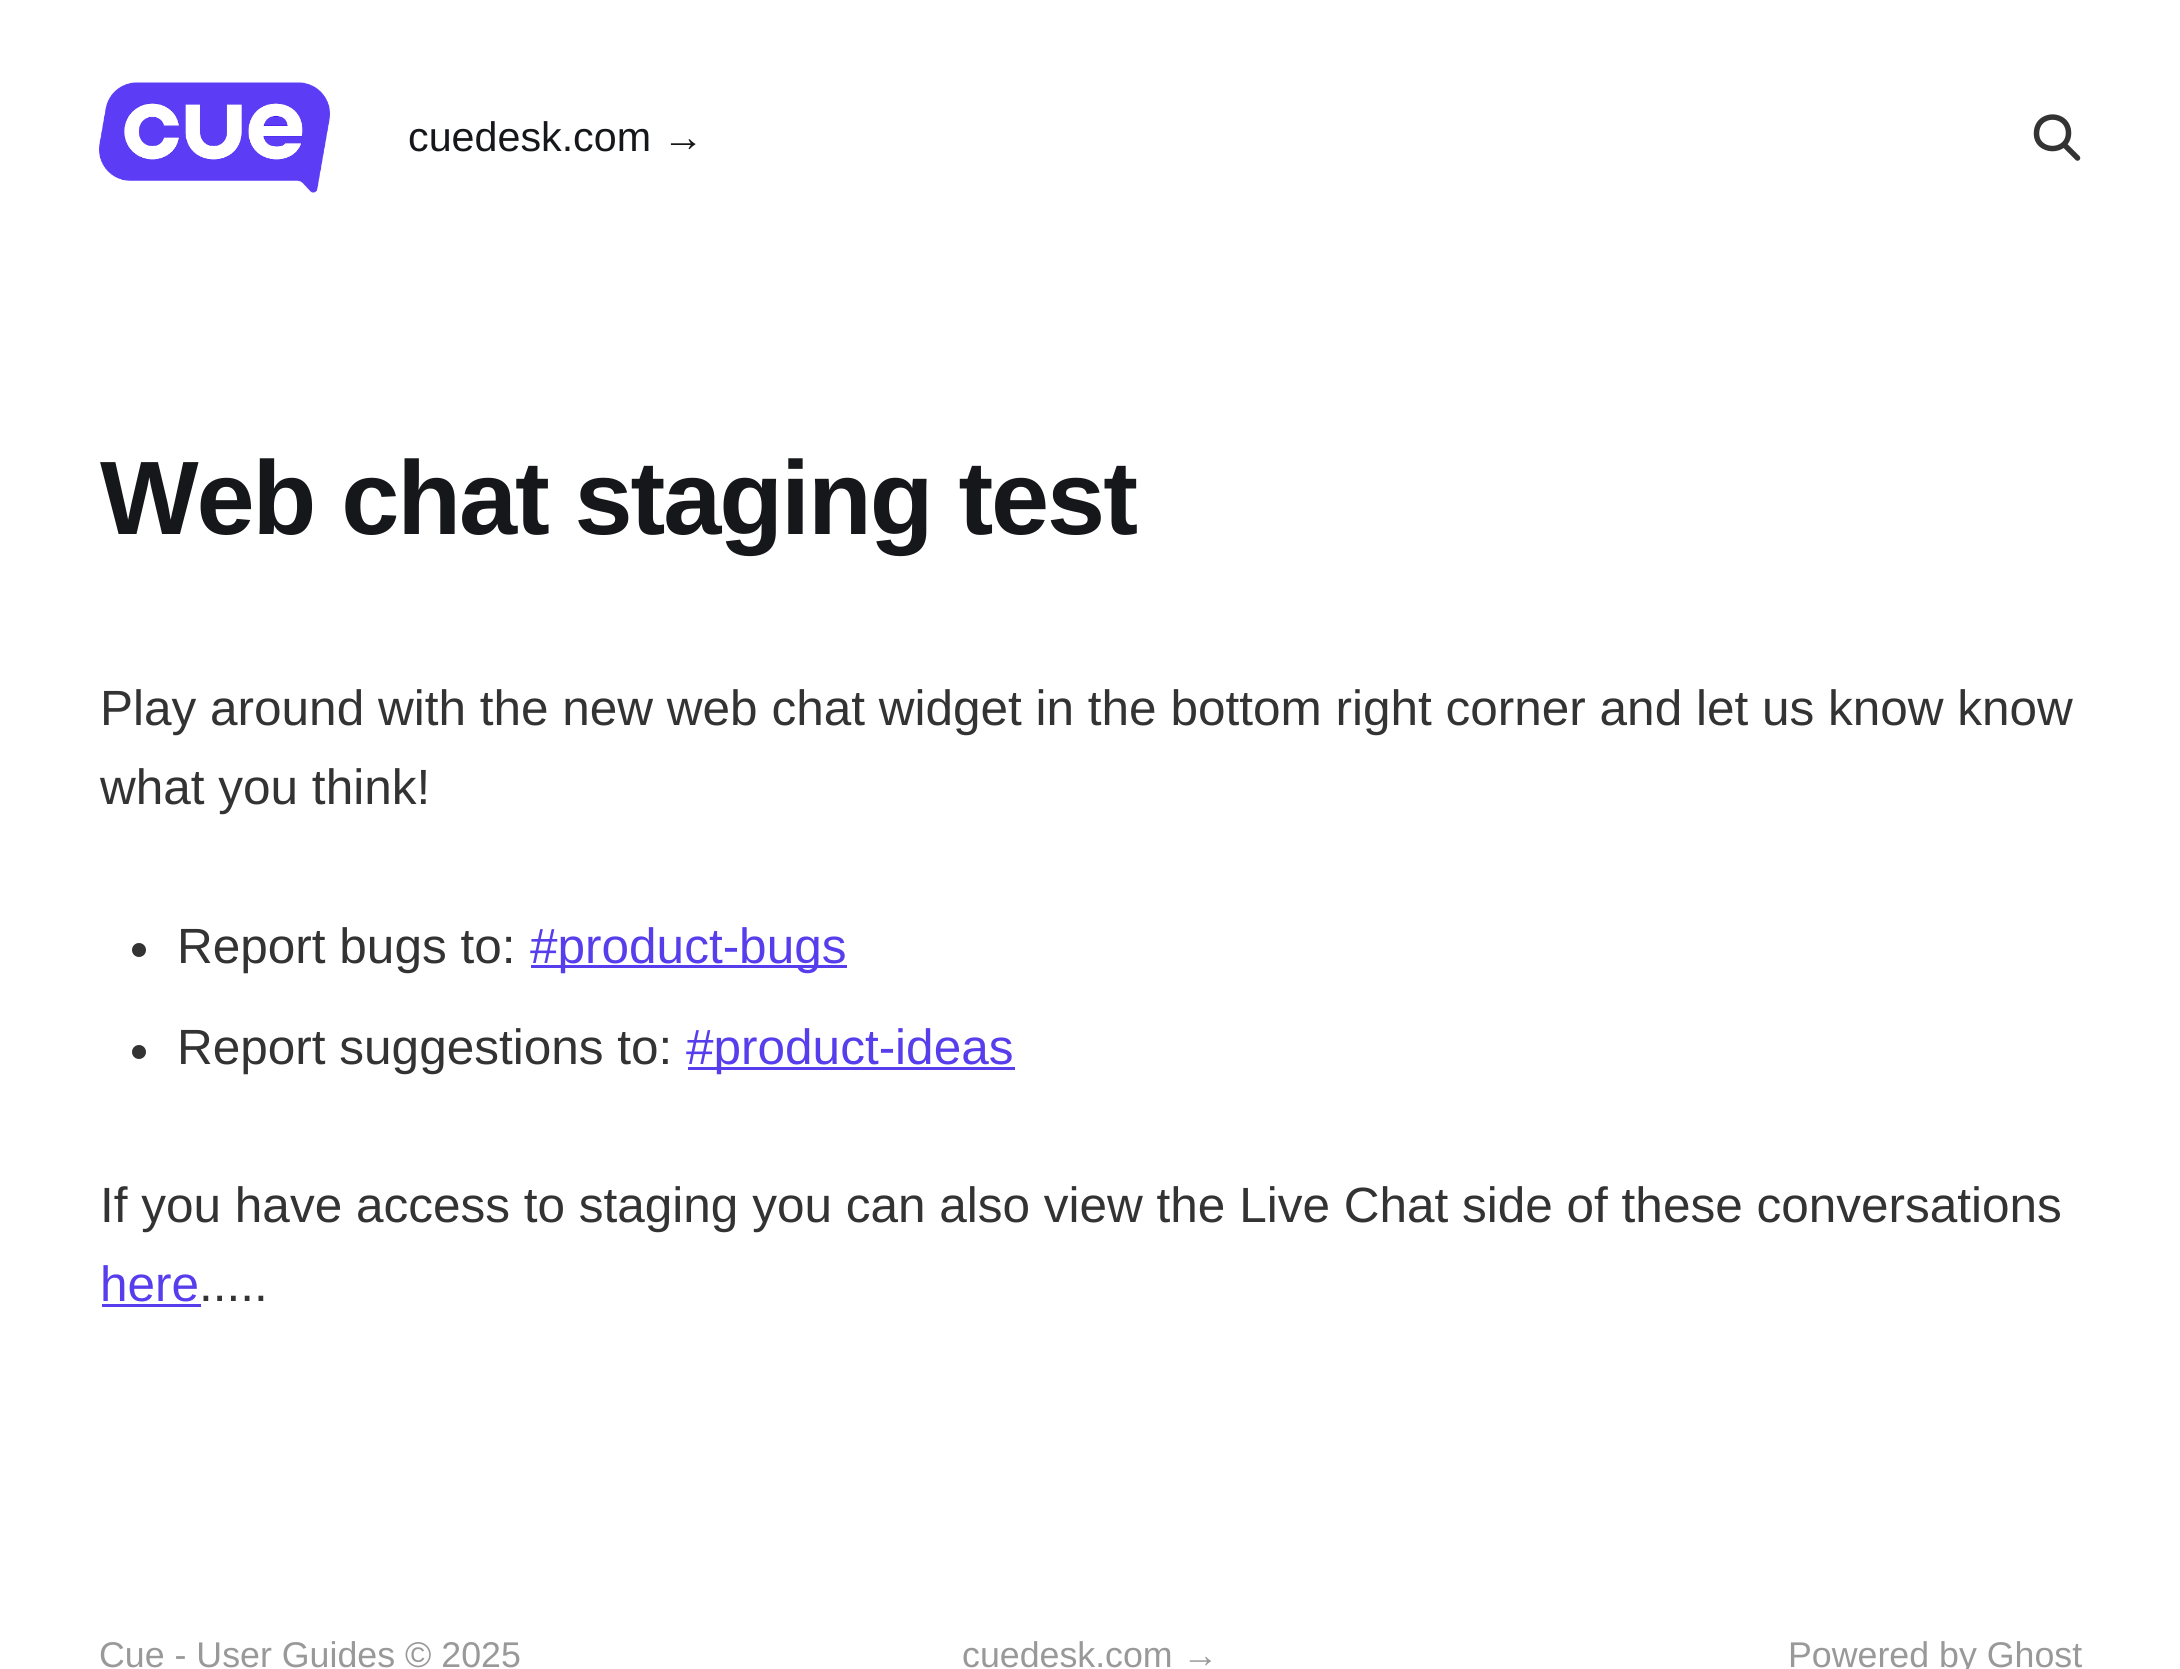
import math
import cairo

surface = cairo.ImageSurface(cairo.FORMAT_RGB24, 2180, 1669)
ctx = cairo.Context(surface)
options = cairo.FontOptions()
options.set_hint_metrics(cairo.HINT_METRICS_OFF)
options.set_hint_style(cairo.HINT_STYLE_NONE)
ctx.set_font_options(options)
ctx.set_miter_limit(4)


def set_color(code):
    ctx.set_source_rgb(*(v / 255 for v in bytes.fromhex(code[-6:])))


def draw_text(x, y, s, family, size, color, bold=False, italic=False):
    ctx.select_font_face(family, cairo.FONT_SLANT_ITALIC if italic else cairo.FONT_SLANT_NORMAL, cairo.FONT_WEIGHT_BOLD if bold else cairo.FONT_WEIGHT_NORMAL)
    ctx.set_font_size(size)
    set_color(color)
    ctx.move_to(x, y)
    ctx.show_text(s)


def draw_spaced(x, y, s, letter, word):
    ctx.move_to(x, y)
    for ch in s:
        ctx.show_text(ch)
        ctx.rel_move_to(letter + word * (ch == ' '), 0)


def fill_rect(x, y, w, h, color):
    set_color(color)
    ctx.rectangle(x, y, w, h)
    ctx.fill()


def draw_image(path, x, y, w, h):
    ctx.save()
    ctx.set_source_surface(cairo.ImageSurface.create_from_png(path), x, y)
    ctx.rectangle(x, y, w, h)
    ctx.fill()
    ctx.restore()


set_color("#ffffff")
ctx.paint()
draw_image("assets/img1.png", 99, 82, 231, 111)
draw_text(408, 151, "cuedesk.com →", "Liberation Sans", 41.25, "#15171a")
ctx.new_path()
ctx.move_to(2077.5, 158)
ctx.line_to(2064, 144.5)
ctx.close_path()
ctx.move_to(2068.5, 133)
ctx.curve_to(2068.5, 154, 2036, 153.5, 2036.5, 133)
ctx.curve_to(2037, 111.5, 2068.5, 112, 2068.5, 133)
ctx.close_path()
set_color("#333333")
ctx.set_line_width(5.5)
ctx.set_line_cap(cairo.LINE_CAP_ROUND)
ctx.set_line_join(cairo.LINE_JOIN_ROUND)
ctx.stroke()
ctx.select_font_face("Liberation Sans", cairo.FONT_SLANT_NORMAL, cairo.FONT_WEIGHT_BOLD)
ctx.set_font_size(104.5)
set_color("#15171a")
draw_spaced(100, 534, "Web chat staging test", -2.1, 0)
draw_text(100, 725, "Play around with the new web chat widget in the bottom right corner and let us know know", "Liberation Sans", 49.5, "#333333")
draw_text(100, 804, "what you think!", "Liberation Sans", 49.5, "#333333")
ctx.new_path()
ctx.arc(139, 950, 7, 0, 2 * math.pi)
ctx.fill()
draw_text(177, 963, "Report bugs to:", "Liberation Sans", 49.5, "#333333")
fill_rect(531, 965, 316, 3, "#573eec")
draw_text(530, 963, "#product-bugs", "Liberation Sans", 49.5, "#573eec")
set_color("#333333")
ctx.new_path()
ctx.arc(139, 1052, 7, 0, 2 * math.pi)
ctx.fill()
draw_text(177, 1064, "Report suggestions to:", "Liberation Sans", 49.5, "#333333")
fill_rect(688, 1067, 327, 3, "#573eec")
draw_text(686, 1064, "#product-ideas", "Liberation Sans", 49.5, "#573eec")
draw_text(100, 1222, "If you have access to staging you can also view the Live Chat side of these conversations", "Liberation Sans", 49.5, "#333333")
draw_text(100, 1301, "here", "Liberation Sans", 49.5, "#573eec")
fill_rect(102, 1304, 99, 3, "#573eec")
draw_text(199, 1301, ".....", "Liberation Sans", 49.5, "#333333")
draw_text(99, 1667, "Cue - User Guides © 2025", "Liberation Sans", 35.75, "#999999")
draw_text(962, 1667, "cuedesk.com →", "Liberation Sans", 35.75, "#999999")
draw_text(1788, 1667, "Powered by Ghost", "Liberation Sans", 35.75, "#999999")
surface.write_to_png("output.png")
